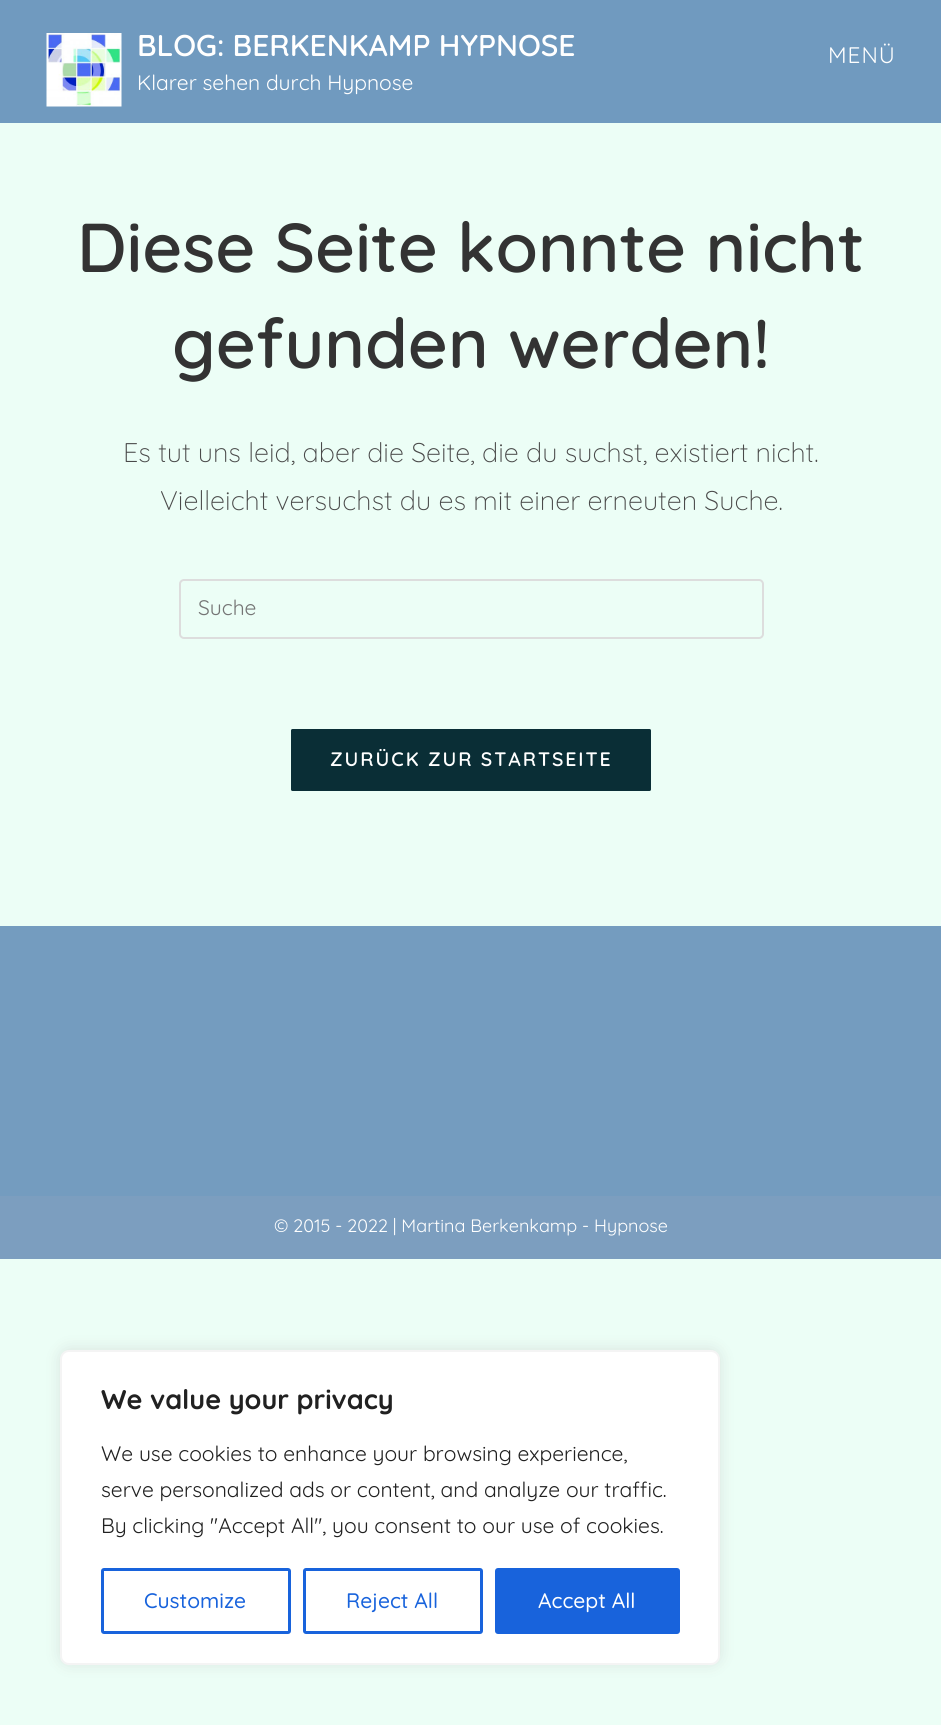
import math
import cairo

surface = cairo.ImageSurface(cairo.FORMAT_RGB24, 941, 1725)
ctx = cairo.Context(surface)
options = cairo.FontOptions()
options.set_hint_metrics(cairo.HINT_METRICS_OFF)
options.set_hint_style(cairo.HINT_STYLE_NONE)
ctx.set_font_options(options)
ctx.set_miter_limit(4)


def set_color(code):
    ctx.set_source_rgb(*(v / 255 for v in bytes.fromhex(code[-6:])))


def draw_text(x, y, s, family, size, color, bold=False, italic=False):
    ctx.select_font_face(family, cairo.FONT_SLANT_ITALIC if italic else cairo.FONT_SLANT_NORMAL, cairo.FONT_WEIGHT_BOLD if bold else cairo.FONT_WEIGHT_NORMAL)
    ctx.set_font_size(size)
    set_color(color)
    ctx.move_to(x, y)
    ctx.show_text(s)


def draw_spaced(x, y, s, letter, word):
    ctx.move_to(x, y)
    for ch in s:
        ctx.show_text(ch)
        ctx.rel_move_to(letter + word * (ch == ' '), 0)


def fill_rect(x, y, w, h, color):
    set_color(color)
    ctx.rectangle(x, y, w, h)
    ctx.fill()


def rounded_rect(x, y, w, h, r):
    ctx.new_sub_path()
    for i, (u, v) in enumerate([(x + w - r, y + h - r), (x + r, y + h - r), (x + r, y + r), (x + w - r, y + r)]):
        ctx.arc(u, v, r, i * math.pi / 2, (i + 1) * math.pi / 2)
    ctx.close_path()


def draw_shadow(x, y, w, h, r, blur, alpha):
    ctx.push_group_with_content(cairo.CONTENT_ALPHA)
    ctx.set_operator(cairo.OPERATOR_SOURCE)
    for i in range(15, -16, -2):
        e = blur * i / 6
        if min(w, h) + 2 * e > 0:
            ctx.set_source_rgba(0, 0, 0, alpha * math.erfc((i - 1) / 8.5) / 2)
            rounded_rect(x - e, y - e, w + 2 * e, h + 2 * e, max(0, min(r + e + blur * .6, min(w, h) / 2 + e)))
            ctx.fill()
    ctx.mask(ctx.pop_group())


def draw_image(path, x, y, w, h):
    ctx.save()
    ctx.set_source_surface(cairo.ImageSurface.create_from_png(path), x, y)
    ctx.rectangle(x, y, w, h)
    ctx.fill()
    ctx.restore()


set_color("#ecfef6")
ctx.paint()
fill_rect(0, 0, 941, 123, "#709abf")
draw_image("assets/img1.png", 46, 33, 76, 74)
draw_text(137, 56, "BLOG: BERKENKAMP HYPNOSE", "Quicksand SemiBold", 30, "#ffffff")
draw_text(137, 90, "Klarer sehen durch Hypnose", "Quicksand", 21, "#ffffff")
ctx.set_font_size(22.5)
draw_spaced(828, 63, "MENÜ", 1, 0)
draw_text(77, 272, "Diese Seite konnte nicht", "Quicksand SemiBold", 69, "#333333")
draw_text(172, 368, "gefunden werden!", "Quicksand SemiBold", 69, "#333333")
draw_text(123, 462, "Es tut uns leid, aber die Seite, die du suchst, existiert nicht.", "Quicksand Light", 27, "#4a4a4a")
draw_text(160, 510, "Vielleicht versuchst du es mit einer erneuten Suche.", "Quicksand Light", 27, "#4a4a4a")
rounded_rect(180, 580, 583, 58, 4)
set_color("#dddddd")
ctx.stroke()
draw_text(198, 615, "Suche", "Quicksand", 21, "#757575")
set_color("#0a2e36")
rounded_rect(291, 729, 360, 62, 1.5)
ctx.fill()
ctx.select_font_face("Quicksand SemiBold")
ctx.set_font_size(19.5)
set_color("#ffffff")
draw_spaced(330, 766, "ZURÜCK ZUR STARTSEITE", 1.95, 0)
fill_rect(0, 926, 941, 270, "#749cbf")
fill_rect(0, 1196, 941, 63, "#7c9ebf")
draw_text(274, 1232, "© 2015 - 2022 | Martina Berkenkamp - Hypnose", "Quicksand", 18, "#ffffff")
set_color("#acabab")
draw_shadow(60, 1349, 660, 315, 9, 7.5, 0.3)
set_color("#ffffff")
rounded_rect(61, 1351, 658, 313, 8)
ctx.fill_preserve()
set_color("#f4f4f4")
ctx.stroke()
draw_text(101, 1409, "We value your privacy", "Quicksand", 27, "#212121", bold=True)
draw_text(101, 1461, "We use cookies to enhance your browsing experience,", "Quicksand", 21, "#212121")
draw_text(101, 1497, "serve personalized ads or content, and analyze our traffic.", "Quicksand", 21, "#212121")
draw_text(101, 1533, "By clicking \"Accept All\", you consent to our use of cookies.", "Quicksand", 21, "#212121")
rounded_rect(102.5, 1569.5, 187, 63, 1.5)
set_color("#1863dc")
ctx.set_line_width(3)
ctx.stroke()
draw_text(144, 1608, "Customize", "Quicksand Medium", 21, "#1863dc")
rounded_rect(304.5, 1569.5, 177, 63, 1.5)
ctx.stroke()
draw_text(346, 1608, "Reject All", "Quicksand Medium", 21, "#1863dc")
rounded_rect(496.5, 1569.5, 182, 63, 1.5)
ctx.fill_preserve()
ctx.stroke()
draw_text(538, 1608, "Accept All", "Quicksand Medium", 21, "#ffffff")
surface.write_to_png("output.png")
